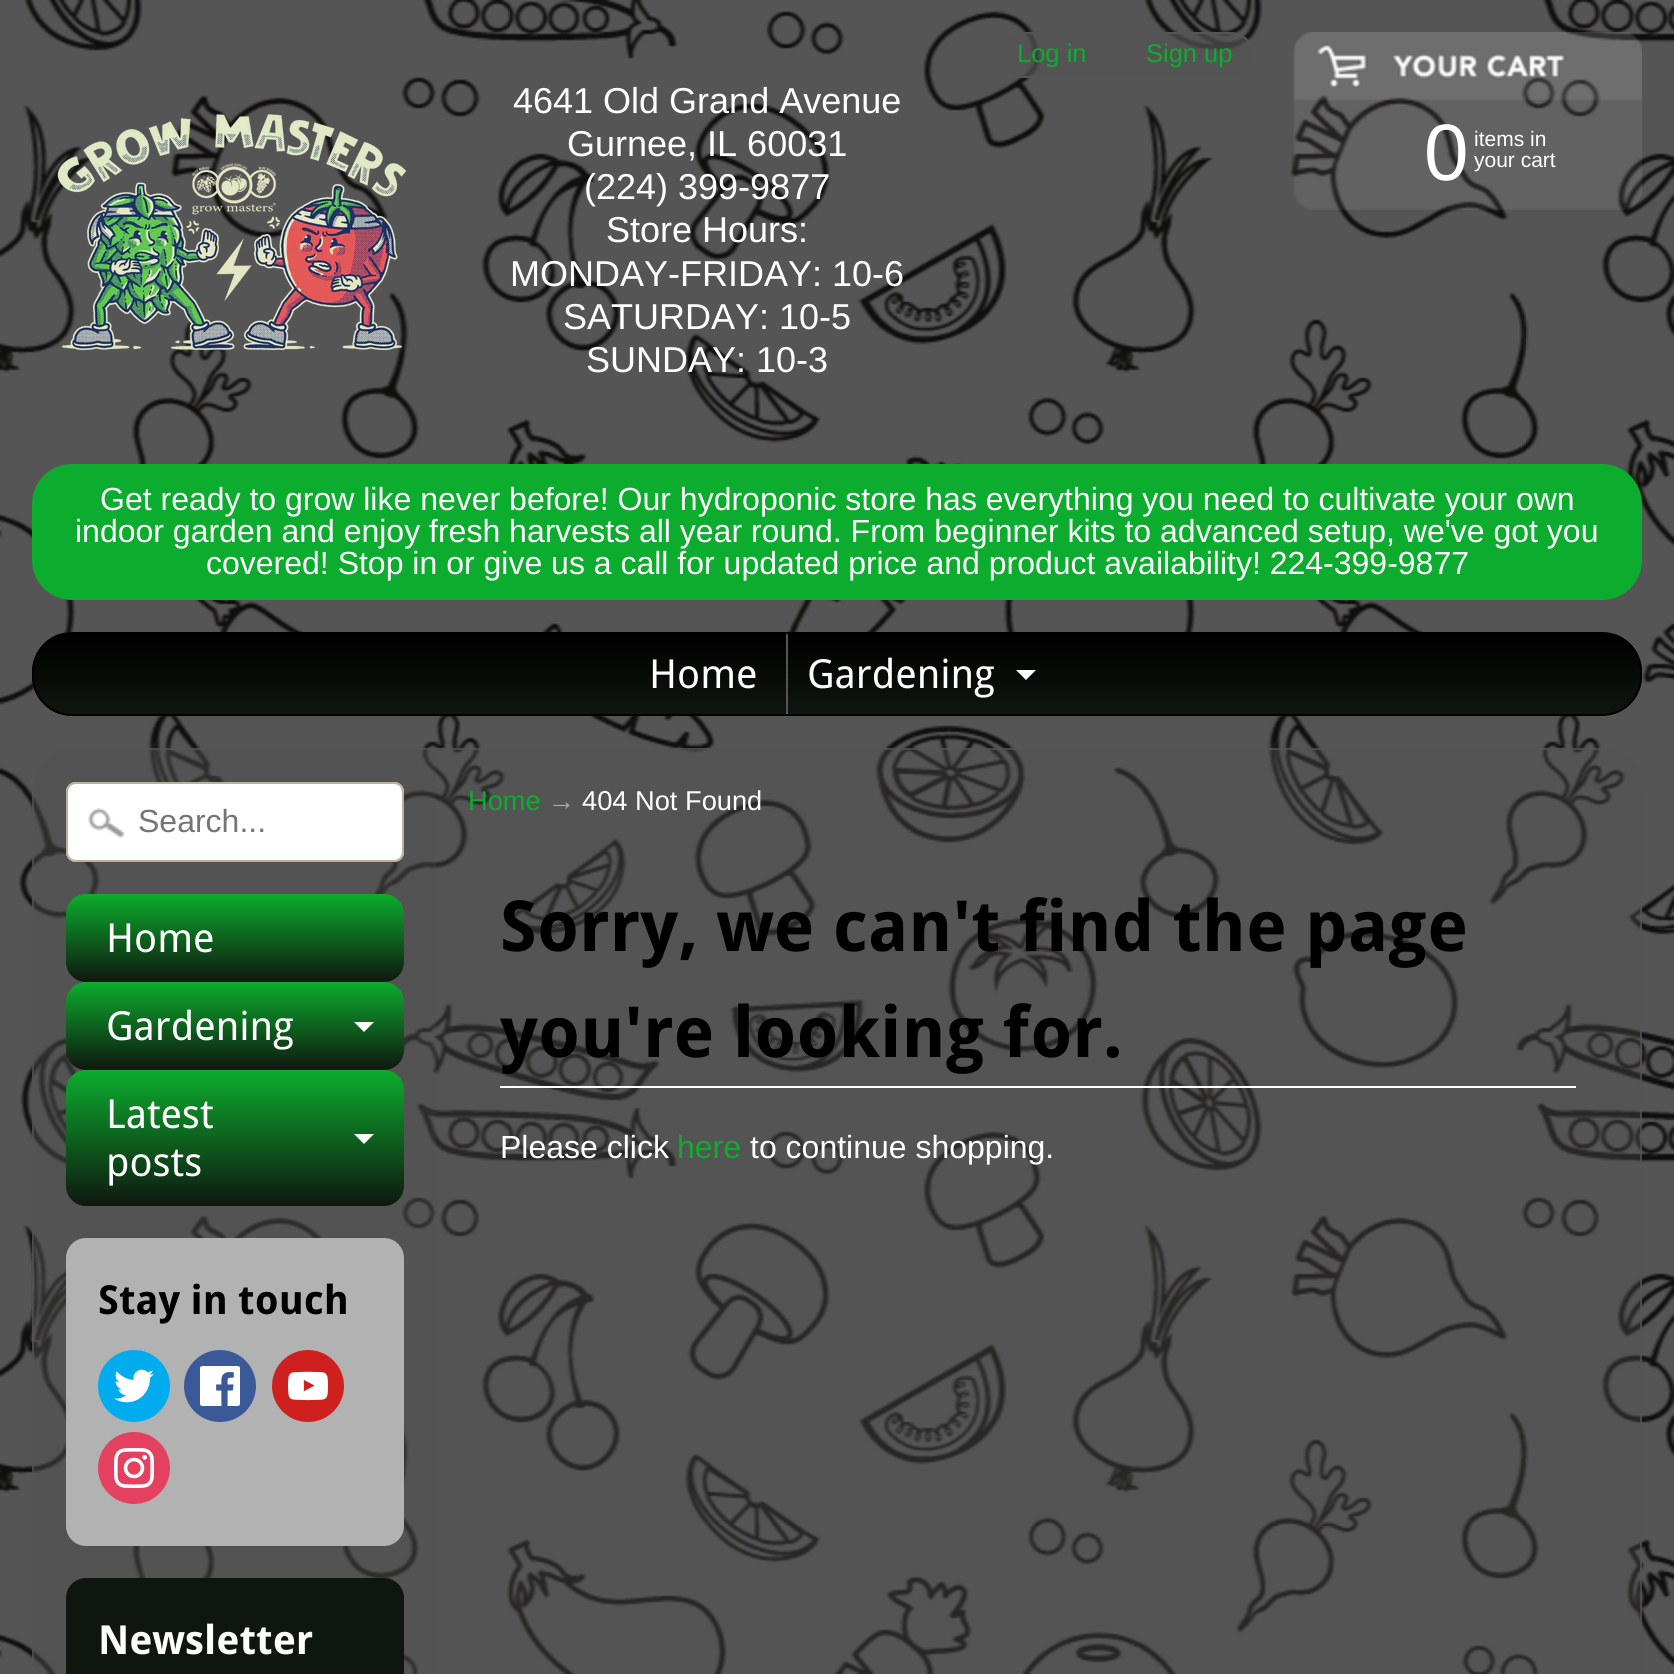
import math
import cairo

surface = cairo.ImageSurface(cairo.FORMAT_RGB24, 1674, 1674)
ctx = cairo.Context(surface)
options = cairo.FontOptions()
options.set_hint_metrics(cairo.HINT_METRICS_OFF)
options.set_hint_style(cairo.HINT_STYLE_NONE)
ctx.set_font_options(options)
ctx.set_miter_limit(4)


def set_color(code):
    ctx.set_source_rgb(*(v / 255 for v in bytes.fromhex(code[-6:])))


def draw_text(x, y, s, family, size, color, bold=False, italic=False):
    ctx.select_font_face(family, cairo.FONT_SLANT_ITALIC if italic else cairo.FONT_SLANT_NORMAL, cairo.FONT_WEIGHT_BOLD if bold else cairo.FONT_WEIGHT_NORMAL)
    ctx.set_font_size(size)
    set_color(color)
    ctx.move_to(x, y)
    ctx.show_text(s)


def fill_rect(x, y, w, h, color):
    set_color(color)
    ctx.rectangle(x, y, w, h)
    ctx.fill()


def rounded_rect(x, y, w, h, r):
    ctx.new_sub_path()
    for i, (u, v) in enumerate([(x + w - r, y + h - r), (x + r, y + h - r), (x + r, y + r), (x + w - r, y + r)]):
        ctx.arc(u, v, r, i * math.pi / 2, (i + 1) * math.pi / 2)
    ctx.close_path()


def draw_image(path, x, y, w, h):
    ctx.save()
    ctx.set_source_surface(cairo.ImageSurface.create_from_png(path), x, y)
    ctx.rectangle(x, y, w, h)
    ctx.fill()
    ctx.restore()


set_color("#555555")
ctx.paint()
draw_image("assets/img1.png", 0, 0, 1674, 1674)
ctx.set_source_rgba(0.333, 0.333, 0.333, 0.7)
rounded_rect(997, 33, 256, 44, 22)
ctx.fill_preserve()
set_color("#555555")
ctx.stroke()
draw_text(1017, 62, "Log in", "Liberation Sans", 25.5, "#0cad2e")
draw_text(1146, 62, "Sign up", "Liberation Sans", 25.5, "#0cad2e")
draw_image("assets/img2.png", 57, 114, 350, 237)
draw_text(513, 113, "4641 Old Grand Avenue", "Liberation Sans", 36, "#ffffff")
draw_text(567, 156, "Gurnee, IL 60031", "Liberation Sans", 36, "#ffffff")
draw_text(584, 199, "(224) 399-9877", "Liberation Sans", 36, "#ffffff")
draw_text(606, 242, "Store Hours:", "Liberation Sans", 36, "#ffffff")
draw_text(510, 286, "MONDAY-FRIDAY: 10-6", "Liberation Sans", 36, "#ffffff")
draw_text(563, 329, "SATURDAY: 10-5", "Liberation Sans", 36, "#ffffff")
draw_text(586, 372, "SUNDAY: 10-3", "Liberation Sans", 36, "#ffffff")
draw_image("assets/img3.png", 1293, 32, 349, 178)
draw_text(1424, 180, "0", "Liberation Sans", 80, "#ffffff")
draw_text(1474, 146, "items in", "Liberation Sans", 21, "#ffffff")
draw_text(1474, 167, "your cart", "Liberation Sans", 21, "#ffffff")
set_color("#0cad2e")
rounded_rect(32, 464, 1610, 136, 40)
ctx.fill()
draw_text(100, 510, "Get ready to grow like never before! Our hydroponic store has everything you need to cultivate your own", "Liberation Sans", 32, "#ffffff")
draw_text(75, 542, "indoor garden and enjoy fresh harvests all year round. From beginner kits to advanced setup, we've got you", "Liberation Sans", 32, "#ffffff")
draw_text(206, 574, "covered! Stop in or give us a call for updated price and product availability! 224-399-9877", "Liberation Sans", 32, "#ffffff")
ctx.save()
rounded_rect(32, 632, 1610, 84, 40)
ctx.clip()
gradient = cairo.LinearGradient(837, 634, 837, 714)
gradient.add_color_stop_rgba(0, 0, 0, 0, 1)
gradient.add_color_stop_rgba(1, 0.059, 0.086, 0.059, 1)
ctx.set_source(gradient)
ctx.rectangle(32, 634, 1610, 80)
ctx.fill()
ctx.restore()
rounded_rect(33, 633, 1608, 82, 39)
set_color("#000000")
ctx.stroke()
draw_text(649, 688, "Home", "Droid Sans", 40, "#ffffff")
fill_rect(786, 634, 2, 80, "#555555")
draw_text(807, 688, "Gardening", "Droid Sans", 40, "#ffffff")
ctx.new_path()
ctx.move_to(1016, 670)
ctx.line_to(1036, 670)
ctx.line_to(1026, 680)
ctx.close_path()
ctx.fill()
ctx.set_source_rgba(0.333, 0.333, 0.333, 0.35)
rounded_rect(32, 748, 1610, 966, 40)
ctx.fill()
rounded_rect(33, 749, 1608, 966, 39)
ctx.set_source_rgba(0.333, 0.333, 0.333, 0.7)
ctx.stroke()
ctx.set_source_rgba(0.333, 0.333, 0.333, 0.15)
ctx.new_path()
ctx.move_to(72, 750)
ctx.line_to(436, 750)
ctx.line_to(436, 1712)
ctx.line_to(72, 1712)
ctx.curve_to(51, 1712, 34, 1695, 34, 1674)
ctx.line_to(34, 788)
ctx.curve_to(34, 767, 51, 750, 72, 750)
ctx.close_path()
ctx.fill()
set_color("#ffffff")
rounded_rect(66, 782, 338, 80, 10)
ctx.fill()
draw_image("assets/img4.png", 88, 808, 36, 30)
rounded_rect(67, 783, 336, 78, 9)
set_color("#bdaf9b")
ctx.stroke()
draw_text(138, 832, "Search...", "Liberation Sans", 32, "#757575")
gradient = cairo.LinearGradient(235, 894, 235, 982)
gradient.add_color_stop_rgba(0, 0.047, 0.678, 0.18, 1)
gradient.add_color_stop_rgba(1, 0.059, 0.09, 0.059, 1)
ctx.set_source(gradient)
rounded_rect(66, 894, 338, 88, 20)
ctx.fill()
draw_text(106, 952, "Home", "Droid Sans", 40, "#ffffff")
gradient = cairo.LinearGradient(235, 982, 235, 1070)
gradient.add_color_stop_rgba(0, 0.047, 0.678, 0.18, 1)
gradient.add_color_stop_rgba(1, 0.059, 0.09, 0.059, 1)
ctx.set_source(gradient)
rounded_rect(66, 982, 338, 88, 20)
ctx.fill()
draw_text(106, 1040, "Gardening", "Droid Sans", 40, "#ffffff")
ctx.new_path()
ctx.move_to(354, 1022)
ctx.line_to(374, 1022)
ctx.line_to(364, 1032)
ctx.close_path()
ctx.fill()
gradient = cairo.LinearGradient(235, 1070, 235, 1206)
gradient.add_color_stop_rgba(0, 0.047, 0.678, 0.18, 1)
gradient.add_color_stop_rgba(1, 0.059, 0.09, 0.059, 1)
ctx.set_source(gradient)
rounded_rect(66, 1070, 338, 136, 20)
ctx.fill()
draw_text(106, 1128, "Latest", "Droid Sans", 40, "#ffffff")
ctx.new_path()
ctx.move_to(354, 1134)
ctx.line_to(374, 1134)
ctx.line_to(364, 1144)
ctx.close_path()
ctx.fill()
draw_text(106, 1176, "posts", "Droid Sans", 40, "#ffffff")
set_color("#b2b2b2")
rounded_rect(66, 1238, 338, 308, 20)
ctx.fill()
draw_text(98, 1314, "Stay in touch", "Droid Sans", 40, "#000000", bold=True)
set_color("#00aced")
ctx.new_path()
ctx.arc(134, 1386, 36, 0, 2 * math.pi)
ctx.fill()
draw_image("assets/img5.png", 114, 1369, 40, 34)
set_color("#3b5998")
ctx.arc(220, 1386, 36, 0, 2 * math.pi)
ctx.fill()
draw_image("assets/img6.png", 200, 1366, 40, 40)
set_color("#cd201f")
ctx.arc(308, 1386, 36, 0, 2 * math.pi)
ctx.fill()
draw_image("assets/img7.png", 288, 1371, 40, 30)
set_color("#e4405f")
ctx.arc(134, 1468, 36, 0, 2 * math.pi)
ctx.fill()
draw_image("assets/img8.png", 114, 1448, 40, 40)
set_color("#0f160f")
rounded_rect(66, 1578, 338, 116, 20)
ctx.fill()
draw_text(98, 1654, "Newsletter", "Droid Sans", 40, "#ffffff", bold=True)
draw_text(468, 810, "Home", "Liberation Sans", 27.25, "#0cad2e")
draw_text(548, 810, "→", "Liberation Sans", 27.25, "#aaaaaa")
draw_text(582, 810, "404 Not Found", "Liberation Sans", 27.25, "#ffffff")
fill_rect(500, 1086, 1076, 2, "#ffffff")
draw_text(500, 951, "Sorry, we can't find the page", "Droid Sans", 70.4, "#000000", bold=True)
draw_text(500, 1057, "you're looking for.", "Droid Sans", 70.4, "#000000", bold=True)
draw_text(500, 1158, "Please click", "Liberation Sans", 32, "#ffffff")
draw_text(677, 1158, "here", "Liberation Sans", 32, "#0cad2e")
draw_text(750, 1158, "to continue shopping.", "Liberation Sans", 32, "#ffffff")
surface.write_to_png("output.png")
